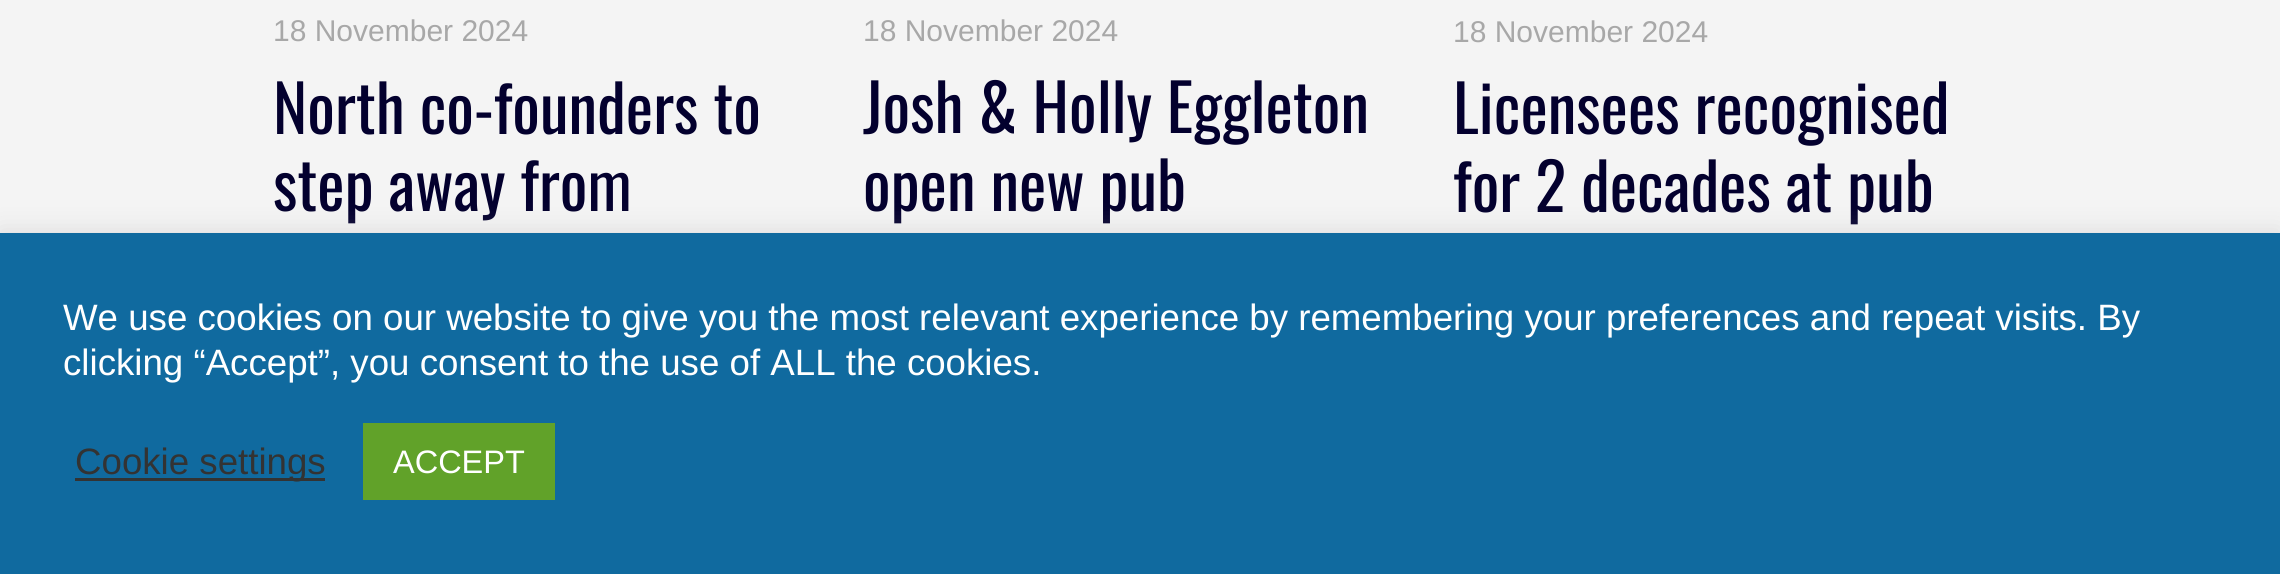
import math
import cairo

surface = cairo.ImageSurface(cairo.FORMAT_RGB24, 2280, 574)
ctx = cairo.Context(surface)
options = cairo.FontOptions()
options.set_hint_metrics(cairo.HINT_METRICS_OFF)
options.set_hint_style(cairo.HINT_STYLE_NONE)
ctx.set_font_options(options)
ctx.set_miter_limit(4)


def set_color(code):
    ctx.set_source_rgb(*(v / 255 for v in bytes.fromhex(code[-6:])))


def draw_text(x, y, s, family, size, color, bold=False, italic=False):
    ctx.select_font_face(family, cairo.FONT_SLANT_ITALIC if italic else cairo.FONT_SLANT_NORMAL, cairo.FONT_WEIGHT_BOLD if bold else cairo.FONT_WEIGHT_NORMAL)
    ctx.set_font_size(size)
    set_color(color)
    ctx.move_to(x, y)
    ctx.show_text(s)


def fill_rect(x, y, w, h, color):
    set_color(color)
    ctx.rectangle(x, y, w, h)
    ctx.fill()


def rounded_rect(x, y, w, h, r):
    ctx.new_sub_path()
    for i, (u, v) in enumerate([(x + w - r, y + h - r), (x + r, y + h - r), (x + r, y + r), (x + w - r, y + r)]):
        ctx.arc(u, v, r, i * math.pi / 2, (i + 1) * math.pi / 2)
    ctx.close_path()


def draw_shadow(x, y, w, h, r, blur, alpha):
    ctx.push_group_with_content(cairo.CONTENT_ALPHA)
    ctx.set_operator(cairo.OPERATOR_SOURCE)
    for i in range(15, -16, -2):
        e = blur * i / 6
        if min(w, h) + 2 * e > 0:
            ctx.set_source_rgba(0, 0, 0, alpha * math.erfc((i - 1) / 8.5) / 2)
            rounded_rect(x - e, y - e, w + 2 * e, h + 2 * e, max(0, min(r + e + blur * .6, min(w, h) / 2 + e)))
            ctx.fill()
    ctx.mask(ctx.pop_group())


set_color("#f4f4f4")
ctx.paint()
draw_text(273, 41, "18 November 2024", "Liberation Sans", 30, "#a8a8a8")
draw_text(273, 134, "North co-founders to", "Oswald", 65, "#03002e")
draw_text(273, 211, "step away from", "Oswald", 65, "#03002e")
draw_text(863, 41, "18 November 2024", "Liberation Sans", 30, "#a8a8a8")
draw_text(863, 133, "Josh & Holly Eggleton", "Oswald", 65, "#03002e")
draw_text(863, 211, "open new pub", "Oswald", 65, "#03002e")
draw_text(1453, 42, "18 November 2024", "Liberation Sans", 30, "#a8a8a8")
draw_text(1453, 134, "Licensees recognised", "Oswald", 65, "#03002e")
draw_text(1453, 212, "for 2 decades at pub", "Oswald", 65, "#03002e")
set_color("#acabab")
draw_shadow(0, 230, 2280, 343, 0, 12.5, 0.3)
fill_rect(0, 233, 2280, 341, "#106a9f")
draw_text(63, 330, "We use cookies on our website to give you the most relevant experience by remembering your preferences and repeat visits. By", "Liberation Sans", 36.67, "#ffffff")
draw_text(63, 375, "clicking “Accept”, you consent to the use of ALL the cookies.", "Liberation Sans", 36.67, "#ffffff")
fill_rect(75, 478, 250, 3, "#333333")
draw_text(75, 474, "Cookie settings", "Liberation Sans", 36.67, "#333333")
fill_rect(363, 423, 192, 77, "#61a229")
draw_text(393, 473, "ACCEPT", "Liberation Sans", 32.5, "#ffffff")
surface.write_to_png("output.png")
